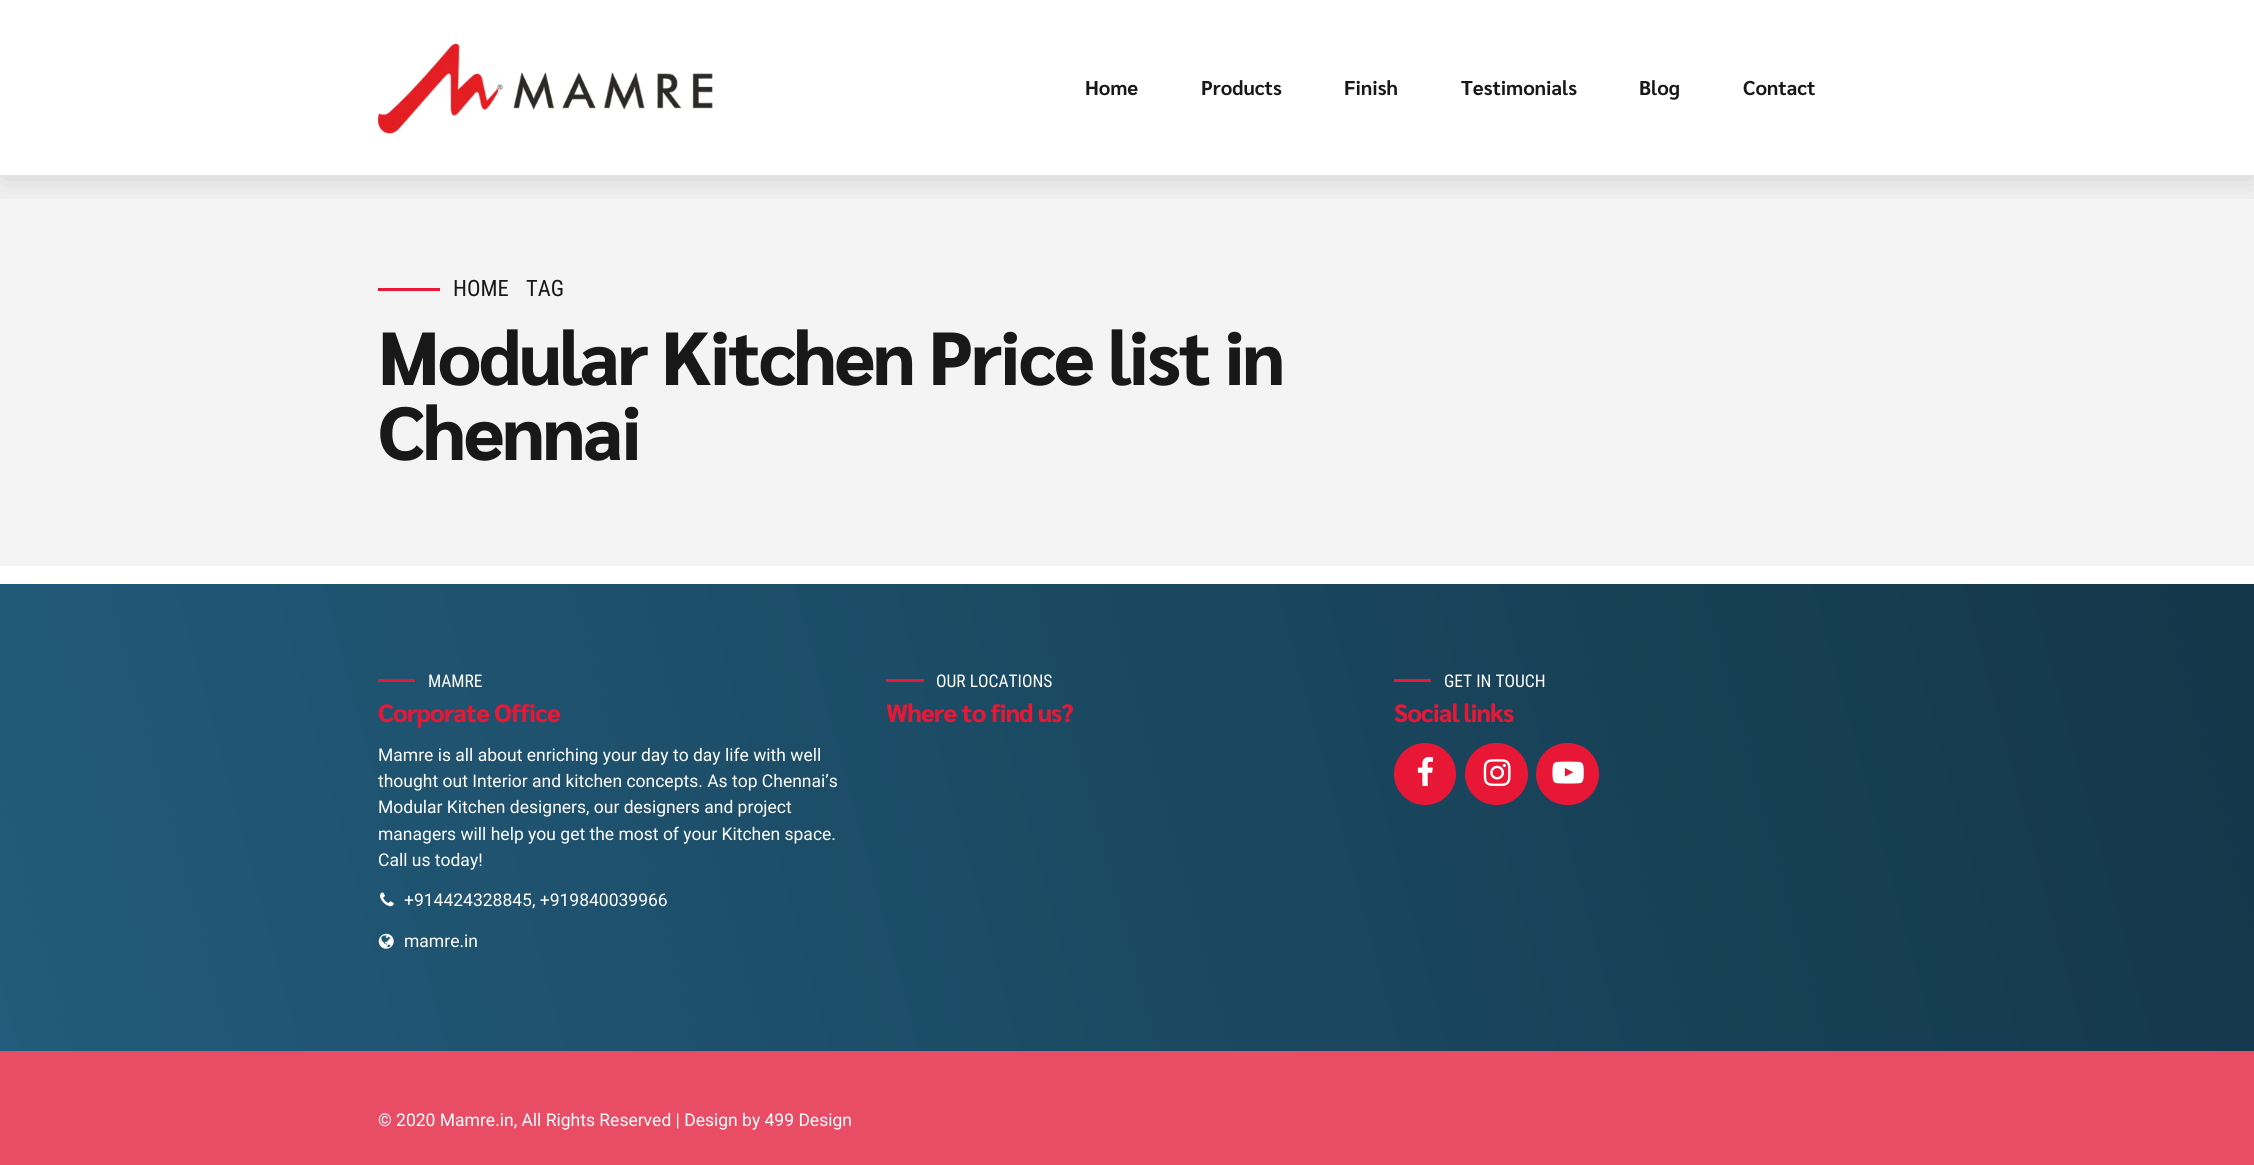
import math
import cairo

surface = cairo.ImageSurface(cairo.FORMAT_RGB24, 2254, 1165)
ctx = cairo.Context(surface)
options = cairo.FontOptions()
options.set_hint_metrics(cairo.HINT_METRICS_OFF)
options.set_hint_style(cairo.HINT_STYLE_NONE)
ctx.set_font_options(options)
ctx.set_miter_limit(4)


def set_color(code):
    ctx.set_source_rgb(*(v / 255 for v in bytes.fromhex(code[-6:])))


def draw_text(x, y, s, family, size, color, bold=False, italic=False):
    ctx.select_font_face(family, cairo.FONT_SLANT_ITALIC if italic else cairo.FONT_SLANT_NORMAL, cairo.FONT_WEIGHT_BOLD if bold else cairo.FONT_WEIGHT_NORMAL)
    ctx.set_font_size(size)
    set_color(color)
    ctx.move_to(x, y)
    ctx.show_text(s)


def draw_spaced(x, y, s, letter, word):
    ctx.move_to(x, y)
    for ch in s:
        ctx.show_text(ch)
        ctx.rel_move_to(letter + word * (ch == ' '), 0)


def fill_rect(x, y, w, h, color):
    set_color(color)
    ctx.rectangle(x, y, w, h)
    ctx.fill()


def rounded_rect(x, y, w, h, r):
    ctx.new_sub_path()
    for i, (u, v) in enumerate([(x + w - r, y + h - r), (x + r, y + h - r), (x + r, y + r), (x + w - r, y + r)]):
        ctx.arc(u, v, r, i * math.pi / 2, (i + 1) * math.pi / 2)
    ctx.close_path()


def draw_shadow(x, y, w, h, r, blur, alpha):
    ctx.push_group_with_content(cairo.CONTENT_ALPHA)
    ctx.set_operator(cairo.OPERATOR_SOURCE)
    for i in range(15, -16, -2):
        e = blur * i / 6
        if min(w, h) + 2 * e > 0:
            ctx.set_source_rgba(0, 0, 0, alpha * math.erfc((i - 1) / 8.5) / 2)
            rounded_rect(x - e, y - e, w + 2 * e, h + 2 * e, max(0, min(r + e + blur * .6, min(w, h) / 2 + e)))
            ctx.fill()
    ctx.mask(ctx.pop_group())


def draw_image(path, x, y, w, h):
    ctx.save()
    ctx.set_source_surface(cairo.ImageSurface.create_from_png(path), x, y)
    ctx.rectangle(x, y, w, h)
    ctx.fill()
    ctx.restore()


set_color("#ffffff")
ctx.paint()
fill_rect(0, 175, 2254, 391, "#f4f4f4")
ctx.save()
ctx.rectangle(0, 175, 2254, 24)
ctx.clip()
set_color("#000000")
draw_shadow(0, 3, 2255, 175, 0, 19, 0.15)
ctx.restore()
draw_image("assets/img1.png", 377, 43, 336, 91)
draw_text(1085, 95, "Home", "Sarabun", 20, "#181818", bold=True)
draw_text(1201, 95, "Products", "Sarabun", 20, "#181818", bold=True)
draw_text(1344, 95, "Finish", "Sarabun", 20, "#181818", bold=True)
draw_text(1461, 95, "Testimonials", "Sarabun", 20, "#181818", bold=True)
draw_text(1639, 95, "Blog", "Sarabun", 20, "#181818", bold=True)
draw_text(1743, 95, "Contact", "Sarabun", 20, "#181818", bold=True)
fill_rect(378, 288, 62, 3, "#e81736")
draw_text(453, 296, "HOME", "Roboto Condensed", 22.5, "#181818")
draw_text(526, 296, "TAG", "Roboto Condensed", 22.5, "#181818")
ctx.select_font_face("Sarabun ExtraBold")
ctx.set_font_size(75)
draw_spaced(378, 385, "Modular Kitchen Price list in", -2.25, 0)
draw_spaced(378, 460, "Chennai", -2.25, 0)
gradient = cairo.LinearGradient(17, 1115, 2238, 520)
gradient.add_color_stop_rgba(0, 0.133, 0.357, 0.482, 1)
gradient.add_color_stop_rgba(1, 0.078, 0.216, 0.286, 1)
ctx.set_source(gradient)
ctx.rectangle(0, 584, 2254, 467)
ctx.fill()
fill_rect(378, 679, 37, 3, "#e81736")
draw_text(428, 687, "MAMRE", "Roboto Condensed", 17.5, "#ffffff")
ctx.select_font_face("Sarabun ExtraBold")
ctx.set_font_size(25)
set_color("#e81736")
draw_spaced(378, 722, "Corporate Office", -0.75, 0)
draw_text(378, 761, "Mamre is all about enriching your day to day life with well", "Roboto", 17.5, "#ffffff")
draw_text(378, 787, "thought out Interior and kitchen concepts. As top Chennai’s", "Roboto", 17.5, "#ffffff")
draw_text(378, 813, "Modular Kitchen designers, our designers and project", "Roboto", 17.5, "#ffffff")
draw_text(378, 840, "managers will help you get the most of your Kitchen space.", "Roboto", 17.5, "#ffffff")
draw_text(378, 866, "Call us today!", "Roboto", 17.5, "#ffffff")
draw_image("assets/img2.png", 380, 892, 14, 15)
draw_text(404, 906, "+914424328845, +919840039966", "Roboto", 17.5, "#ffffff")
draw_image("assets/img3.png", 378, 933, 16, 16)
draw_text(404, 947, "mamre.in", "Roboto", 17.5, "#ffffff")
fill_rect(886, 679, 38, 3, "#e81736")
draw_text(936, 687, "OUR LOCATIONS", "Roboto Condensed", 17.5, "#ffffff")
ctx.select_font_face("Sarabun ExtraBold")
ctx.set_font_size(25)
set_color("#e81736")
draw_spaced(886, 722, "Where to find us?", -0.75, 0)
fill_rect(1394, 679, 37, 3, "#e81736")
draw_text(1444, 687, "GET IN TOUCH", "Roboto Condensed", 17.5, "#ffffff")
ctx.select_font_face("Sarabun ExtraBold")
ctx.set_font_size(25)
set_color("#e81736")
draw_spaced(1394, 722, "Social links", -0.75, 0)
ctx.new_path()
ctx.arc(1425, 774, 31, 0, 2 * math.pi)
ctx.fill()
draw_image("assets/img4.png", 1417, 757, 16, 29)
rounded_rect(1465, 743, 63, 62, 31)
ctx.fill()
draw_image("assets/img5.png", 1483, 759, 28, 27)
rounded_rect(1536, 743, 63, 62, 31)
ctx.fill()
draw_image("assets/img6.png", 1552, 761, 32, 23)
fill_rect(0, 1051, 2254, 114, "#e94d65")
draw_text(378, 1126, "© 2020 Mamre.in, All Rights Reserved | Design by 499 Design", "Roboto", 17.5, "#ffffff")
surface.write_to_png("output.png")
